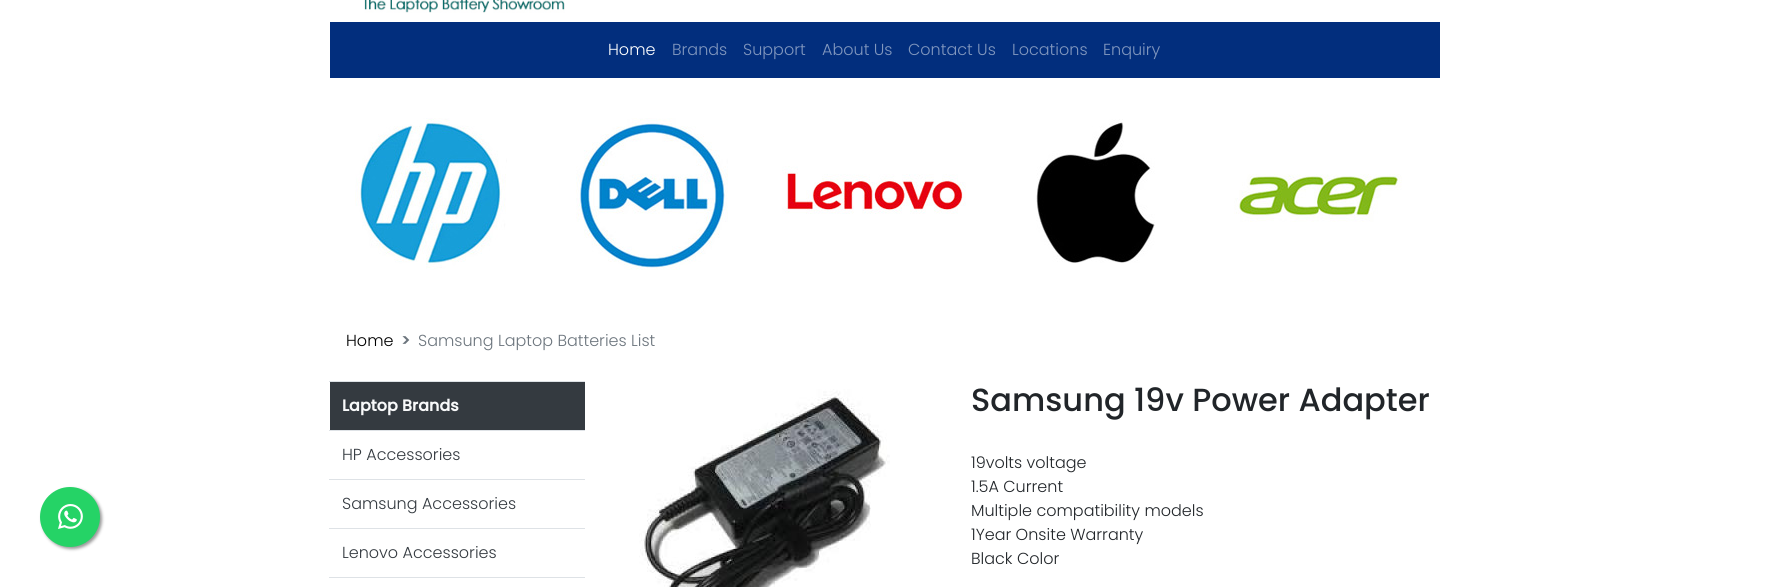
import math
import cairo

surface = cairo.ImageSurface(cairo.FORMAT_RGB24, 1769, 587)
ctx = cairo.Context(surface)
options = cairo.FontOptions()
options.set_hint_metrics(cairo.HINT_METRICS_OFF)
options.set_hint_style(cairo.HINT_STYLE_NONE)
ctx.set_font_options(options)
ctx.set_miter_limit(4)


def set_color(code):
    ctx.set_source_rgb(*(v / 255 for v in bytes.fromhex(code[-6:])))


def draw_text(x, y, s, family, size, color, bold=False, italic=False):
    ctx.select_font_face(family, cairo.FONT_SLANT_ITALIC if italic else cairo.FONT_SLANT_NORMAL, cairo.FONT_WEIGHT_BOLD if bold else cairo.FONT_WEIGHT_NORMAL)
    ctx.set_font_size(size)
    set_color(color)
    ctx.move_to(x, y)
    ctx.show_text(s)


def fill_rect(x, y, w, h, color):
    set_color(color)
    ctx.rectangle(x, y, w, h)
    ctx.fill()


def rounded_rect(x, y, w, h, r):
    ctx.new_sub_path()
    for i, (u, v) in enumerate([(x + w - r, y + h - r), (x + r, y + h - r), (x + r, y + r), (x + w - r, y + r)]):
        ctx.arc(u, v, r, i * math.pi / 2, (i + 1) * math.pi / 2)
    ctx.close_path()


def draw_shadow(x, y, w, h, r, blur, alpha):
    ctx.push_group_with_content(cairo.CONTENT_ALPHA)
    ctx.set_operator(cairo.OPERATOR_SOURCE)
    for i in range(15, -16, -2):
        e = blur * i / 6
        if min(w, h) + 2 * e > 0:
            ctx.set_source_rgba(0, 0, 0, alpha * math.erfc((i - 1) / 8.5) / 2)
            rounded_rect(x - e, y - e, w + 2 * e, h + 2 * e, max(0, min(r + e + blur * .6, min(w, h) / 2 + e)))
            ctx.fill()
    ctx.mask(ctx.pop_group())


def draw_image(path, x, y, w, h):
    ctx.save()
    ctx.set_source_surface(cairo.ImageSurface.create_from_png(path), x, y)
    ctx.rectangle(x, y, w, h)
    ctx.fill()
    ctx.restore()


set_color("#ffffff")
ctx.paint()
draw_image("assets/img1.png", 364, 0, 201, 13)
fill_rect(330, 22, 1110, 56, "#022e7d")
draw_text(608, 55, "Home", "Poppins Light", 16, "#ffffff")
draw_text(672, 55, "Brands", "Poppins Light", 16, "#8197be")
draw_text(743, 55, "Support", "Poppins Light", 16, "#8197be")
draw_text(822, 55, "About Us", "Poppins Light", 16, "#8197be")
draw_text(908, 55, "Contact Us", "Poppins Light", 16, "#8197be")
draw_text(1012, 55, "Locations", "Poppins Light", 16, "#8197be")
draw_text(1103, 55, "Enquiry", "Poppins Light", 16, "#8197be")
draw_image("assets/img2.png", 355, 118, 152, 152)
draw_image("assets/img3.png", 576, 118, 152, 152)
draw_image("assets/img4.png", 782, 166, 184, 48)
draw_image("assets/img5.png", 1036, 119, 119, 144)
draw_image("assets/img6.png", 1234, 174, 168, 48)
set_color("#999999")
draw_shadow(42, 489, 60, 60, 30, 1.5, 1)
set_color("#25d366")
ctx.arc(70, 517, 30, 0, 2 * math.pi)
ctx.fill()
draw_image("assets/img7.png", 58, 504, 25, 25)
draw_text(346, 346, "Home", "Poppins Light", 16, "#000000")
draw_text(401, 346, ">", "Poppins", 16, "#6c757d", bold=True)
draw_text(418, 346, "Samsung Laptop Batteries List", "Poppins Light", 16, "#6c757d")
fill_rect(330, 382, 255, 48, "#343a40")
fill_rect(329, 381, 256, 1, "#dee2e6")
draw_text(342, 411, "Laptop Brands", "Poppins", 16, "#f8f9fa", bold=True)
fill_rect(329, 430, 256, 1, "#dee2e6")
draw_text(342, 460, "HP Accessories", "Poppins Light", 16, "#343a40")
fill_rect(329, 479, 256, 1, "#dee2e6")
draw_text(342, 509, "Samsung Accessories", "Poppins Light", 16, "#343a40")
fill_rect(329, 528, 256, 1, "#dee2e6")
draw_text(342, 558, "Lenovo Accessories", "Poppins Light", 16, "#343a40")
fill_rect(329, 577, 256, 1, "#dee2e6")
draw_image("assets/img8.png", 639, 389, 251, 198)
draw_text(971, 411, "Samsung 19v Power Adapter", "Poppins Medium", 32, "#212529")
draw_text(971, 468, "19volts voltage", "Poppins Light", 16, "#212529")
draw_text(971, 492, "1.5A Current", "Poppins Light", 16, "#212529")
draw_text(971, 516, "Multiple compatibility models", "Poppins Light", 16, "#212529")
draw_text(971, 540, "1Year Onsite Warranty", "Poppins Light", 16, "#212529")
draw_text(971, 564, "Black Color", "Poppins Light", 16, "#212529")
surface.write_to_png("output.png")
